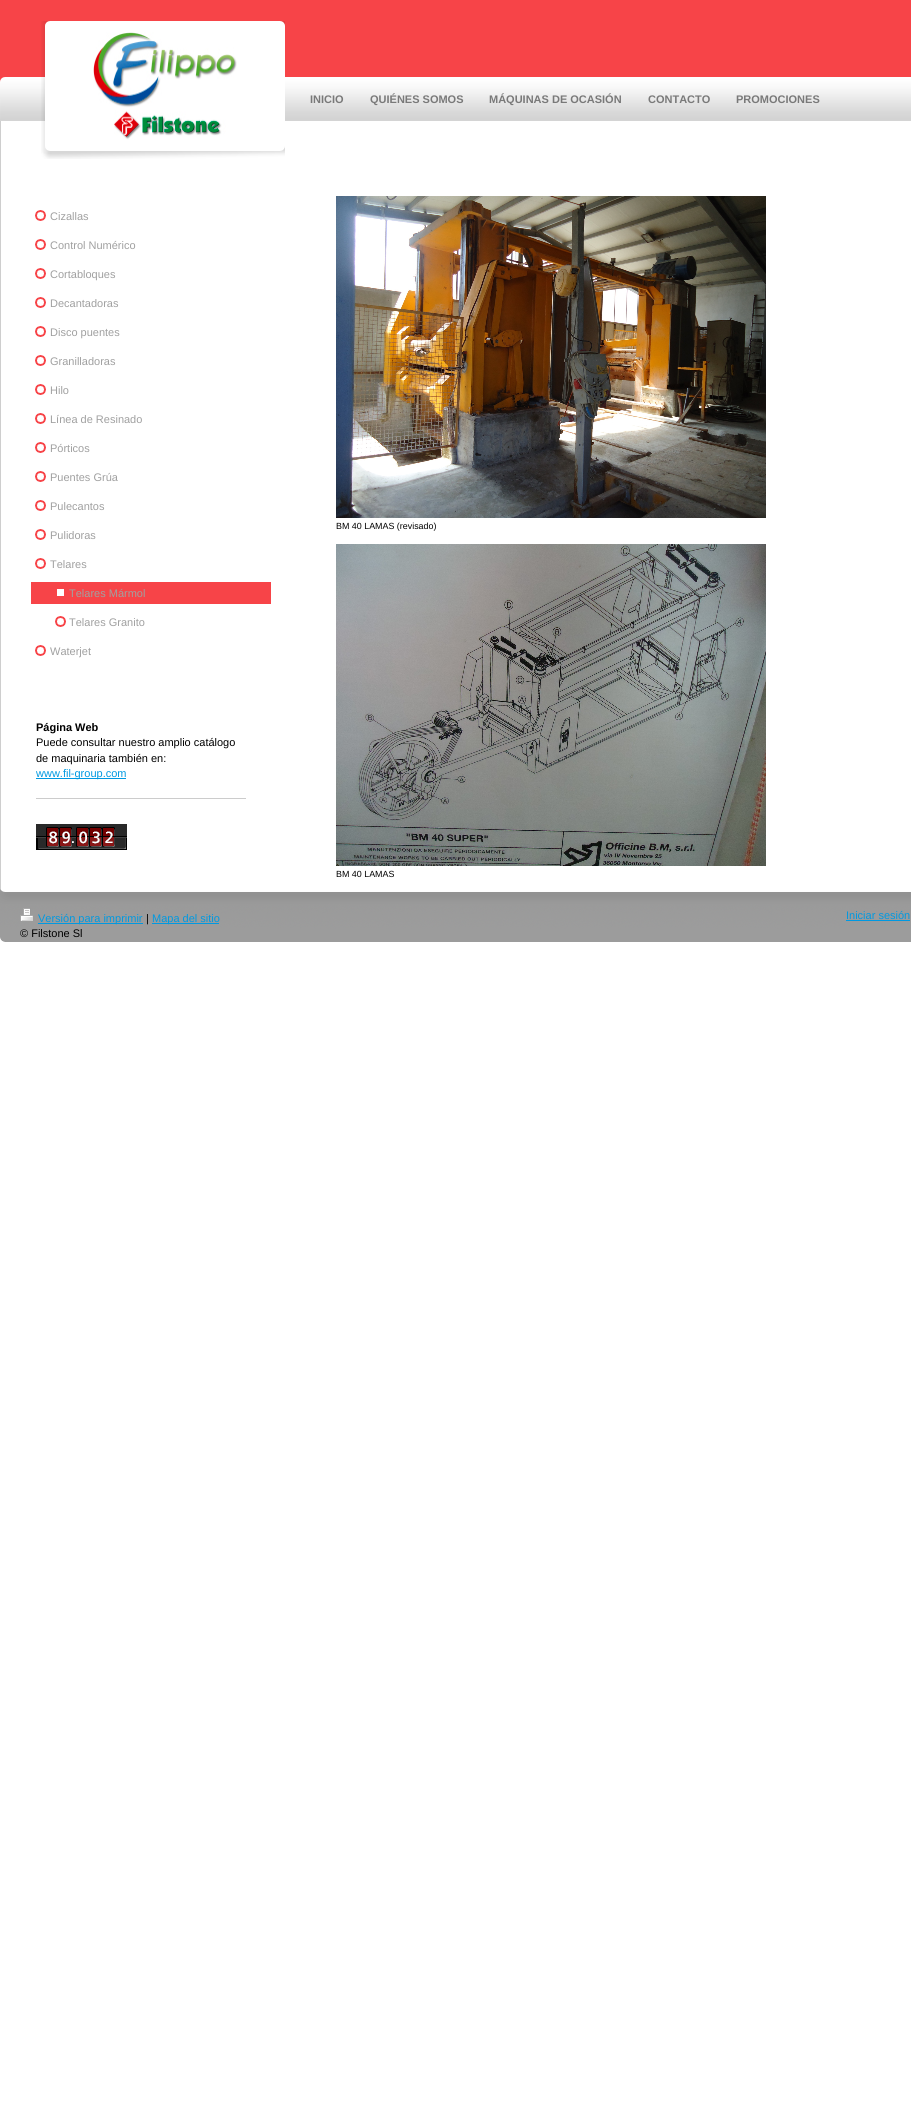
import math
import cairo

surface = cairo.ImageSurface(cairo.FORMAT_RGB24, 911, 2109)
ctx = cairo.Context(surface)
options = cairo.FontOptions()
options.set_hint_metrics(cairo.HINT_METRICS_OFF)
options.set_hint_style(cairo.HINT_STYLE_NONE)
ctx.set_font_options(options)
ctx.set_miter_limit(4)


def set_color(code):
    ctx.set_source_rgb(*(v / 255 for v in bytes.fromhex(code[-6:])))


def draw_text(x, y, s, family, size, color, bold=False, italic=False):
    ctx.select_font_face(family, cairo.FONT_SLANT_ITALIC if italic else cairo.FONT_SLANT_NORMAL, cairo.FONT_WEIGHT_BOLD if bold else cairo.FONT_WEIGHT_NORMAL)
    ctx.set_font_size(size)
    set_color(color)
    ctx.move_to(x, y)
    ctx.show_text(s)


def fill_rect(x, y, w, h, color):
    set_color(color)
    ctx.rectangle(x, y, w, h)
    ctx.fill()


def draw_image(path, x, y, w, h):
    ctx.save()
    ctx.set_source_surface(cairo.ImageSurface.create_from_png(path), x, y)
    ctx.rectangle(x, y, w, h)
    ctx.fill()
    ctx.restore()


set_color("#ffffff")
ctx.paint()
fill_rect(0, 0, 911, 77, "#f74448")
draw_image("assets/img3.png", 5, 77, 906, 44)
draw_image("assets/img1.png", 41, 21, 244, 138)
draw_image("assets/img2.png", 93, 32, 144, 108)
fill_rect(0, 77, 5, 5, "#f74448")
draw_image("assets/img4.png", 0, 77, 5, 44)
draw_image("assets/img5.png", 297, 77, 60, 44)
draw_text(310, 103, "INICIO", "Liberation Sans", 11, "#797979", bold=True)
draw_image("assets/img6.png", 357, 77, 119, 44)
draw_text(370, 103, "QUIÉNES SOMOS", "Liberation Sans", 11, "#797979", bold=True)
draw_image("assets/img7.png", 476, 77, 159, 44)
draw_text(489, 103, "MÁQUINAS DE OCASIÓN", "Liberation Sans", 11, "#797979", bold=True)
draw_image("assets/img8.png", 635, 77, 88, 44)
draw_text(648, 103, "CONTACTO", "Liberation Sans", 11, "#797979", bold=True)
draw_image("assets/img9.png", 723, 77, 110, 44)
draw_text(736, 103, "PROMOCIONES", "Liberation Sans", 11, "#797979", bold=True)
fill_rect(0, 121, 1, 767, "#cecece")
fill_rect(31, 210, 240, 446, "#f74448")
draw_image("assets/img10.png", 31, 205, 240, 29)
draw_text(50, 220, "Cizallas", "Liberation Sans", 11, "#a0a0a0")
draw_image("assets/img10.png", 31, 234, 240, 29)
draw_text(50, 249, "Control Numérico", "Liberation Sans", 11, "#a0a0a0")
draw_image("assets/img10.png", 31, 263, 240, 29)
draw_text(50, 278, "Cortabloques", "Liberation Sans", 11, "#a0a0a0")
draw_image("assets/img10.png", 31, 292, 240, 29)
draw_text(50, 307, "Decantadoras", "Liberation Sans", 11, "#a0a0a0")
draw_image("assets/img10.png", 31, 321, 240, 29)
draw_text(50, 336, "Disco puentes", "Liberation Sans", 11, "#a0a0a0")
draw_image("assets/img10.png", 31, 350, 240, 29)
draw_text(50, 365, "Granilladoras", "Liberation Sans", 11, "#a0a0a0")
draw_image("assets/img10.png", 31, 379, 240, 29)
draw_text(50, 394, "Hilo", "Liberation Sans", 11, "#a0a0a0")
draw_image("assets/img10.png", 31, 408, 240, 29)
draw_text(50, 423, "Línea de Resinado", "Liberation Sans", 11, "#a0a0a0")
draw_image("assets/img10.png", 31, 437, 240, 29)
draw_text(50, 452, "Pórticos", "Liberation Sans", 11, "#a0a0a0")
draw_image("assets/img10.png", 31, 466, 240, 29)
draw_text(50, 481, "Puentes Grúa", "Liberation Sans", 11, "#a0a0a0")
draw_image("assets/img10.png", 31, 495, 240, 29)
draw_text(50, 510, "Pulecantos", "Liberation Sans", 11, "#a0a0a0")
draw_image("assets/img10.png", 31, 524, 240, 29)
draw_text(50, 539, "Pulidoras", "Liberation Sans", 11, "#a0a0a0")
draw_image("assets/img10.png", 31, 553, 240, 29)
draw_text(50, 568, "Telares", "Liberation Sans", 11, "#a0a0a0")
fill_rect(57, 589, 7, 7, "#ffffff")
fill_rect(31, 604, 240, 7, "#ffffff")
draw_text(69, 597, "Telares Mármol", "Liberation Sans", 11, "#a0a0a0")
draw_image("assets/img11.png", 31, 611, 240, 29)
draw_text(69, 626, "Telares Granito", "Liberation Sans", 11, "#a0a0a0")
draw_image("assets/img10.png", 31, 640, 240, 29)
draw_text(50, 655, "Waterjet", "Liberation Sans", 11, "#a0a0a0")
draw_text(36, 731, "Página Web", "Liberation Sans", 11, "#000000", bold=True)
draw_text(36, 746, "Puede consultar nuestro amplio catálogo", "Liberation Sans", 11, "#000000")
draw_text(36, 762, "de maquinaria también en:", "Liberation Sans", 11, "#000000")
fill_rect(36, 778, 90, 1, "#0099e1")
draw_text(36, 777, "www.fil-group.com", "Liberation Sans", 11, "#0099e1")
fill_rect(36, 798, 210, 1, "#cccccc")
draw_image("assets/img12.png", 36, 824, 10, 26)
draw_image("assets/img13.png", 46, 824, 13, 26)
draw_image("assets/img14.png", 59, 824, 13, 26)
draw_image("assets/img15.png", 72, 824, 4, 26)
draw_image("assets/img16.png", 76, 824, 13, 26)
draw_image("assets/img17.png", 89, 824, 13, 26)
draw_image("assets/img18.png", 102, 824, 13, 26)
draw_image("assets/img19.png", 115, 824, 12, 26)
draw_image("assets/img20.png", 336, 196, 430, 322)
draw_text(336, 529, "BM 40 LAMAS (revisado)", "Liberation Sans", 8.9, "#000000")
draw_image("assets/img21.png", 336, 544, 430, 322)
draw_text(336, 877, "BM 40 LAMAS", "Liberation Sans", 8.9, "#000000")
draw_image("assets/img22.png", 0, 888, 911, 54)
draw_image("assets/img23.png", 20, 908, 13, 13)
fill_rect(38, 923, 105, 1, "#0099e1")
draw_text(38, 922, "Versión para imprimir", "Liberation Sans", 11, "#0099e1")
draw_text(146, 922, "|", "Liberation Sans", 11, "#000000")
fill_rect(152, 923, 67, 1, "#0099e1")
draw_text(152, 922, "Mapa del sitio", "Liberation Sans", 11, "#0099e1")
draw_text(20, 937, "© Filstone Sl", "Liberation Sans", 11, "#000000")
draw_text(846, 919, "Iniciar sesión", "Liberation Sans", 11, "#0099e1")
fill_rect(846, 920, 64, 1, "#0099e1")
surface.write_to_png("output.png")
